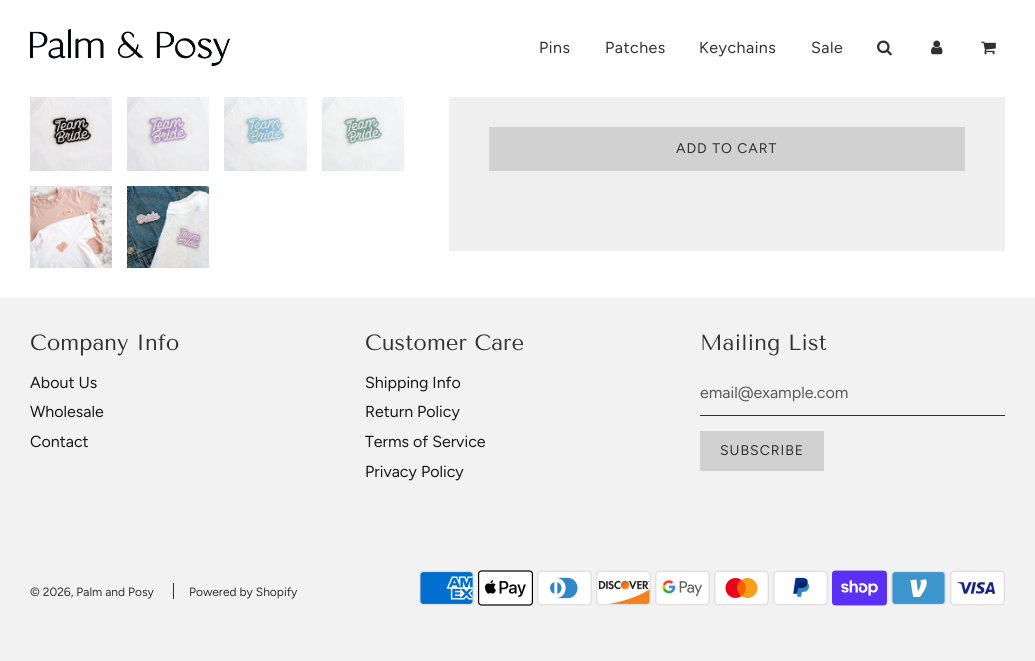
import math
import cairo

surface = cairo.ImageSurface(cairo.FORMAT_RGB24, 1035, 661)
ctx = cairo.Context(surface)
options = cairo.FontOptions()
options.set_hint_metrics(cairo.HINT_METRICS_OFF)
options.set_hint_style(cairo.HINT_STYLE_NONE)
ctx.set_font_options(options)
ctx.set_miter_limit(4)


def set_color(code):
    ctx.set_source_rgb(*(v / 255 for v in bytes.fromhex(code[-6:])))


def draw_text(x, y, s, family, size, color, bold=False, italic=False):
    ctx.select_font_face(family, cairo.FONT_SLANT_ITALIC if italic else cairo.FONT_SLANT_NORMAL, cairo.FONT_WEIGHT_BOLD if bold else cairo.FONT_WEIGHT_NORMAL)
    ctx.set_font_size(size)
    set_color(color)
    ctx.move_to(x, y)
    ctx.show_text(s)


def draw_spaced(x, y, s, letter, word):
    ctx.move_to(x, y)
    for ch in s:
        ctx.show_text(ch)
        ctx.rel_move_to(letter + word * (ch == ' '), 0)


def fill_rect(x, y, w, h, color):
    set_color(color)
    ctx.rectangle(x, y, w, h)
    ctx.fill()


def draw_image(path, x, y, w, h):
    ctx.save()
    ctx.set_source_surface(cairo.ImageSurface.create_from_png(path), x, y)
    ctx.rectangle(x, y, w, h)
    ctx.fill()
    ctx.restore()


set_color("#ffffff")
ctx.paint()
draw_image("assets/img1.png", 30, 29, 200, 37)
ctx.select_font_face("Figtree")
ctx.set_font_size(16)
set_color("#323131")
draw_spaced(539, 53, "Pins", 0.5, 0)
draw_spaced(605, 53, "Patches", 0.5, 0)
draw_spaced(699, 53, "Keychains", 0.5, 0)
draw_spaced(811, 53, "Sale", 0.5, 0)
draw_image("assets/img2.png", 877, 40, 15, 16)
draw_image("assets/img3.png", 931, 40, 12, 15)
draw_image("assets/img4.png", 981, 41, 15, 14)
draw_image("assets/img5.png", 30, 97, 82, 74)
draw_image("assets/img6.png", 127, 97, 82, 74)
draw_image("assets/img7.png", 224, 97, 83, 74)
draw_image("assets/img8.png", 322, 97, 82, 74)
draw_image("assets/img9.png", 30, 186, 82, 82)
draw_image("assets/img10.png", 127, 186, 82, 82)
fill_rect(449, 97, 556, 154, "#efefef")
fill_rect(489, 127, 476, 44, "#d2d1d1")
ctx.set_font_size(14)
set_color("#323131")
draw_spaced(676, 153, "ADD TO CART", 1, 0)
fill_rect(0, 298, 1035, 363, "#f2f2f2")
draw_text(30, 350, "Company Info", "Tenor Sans", 22, "#323131")
draw_text(30, 388, "About Us", "Figtree", 16, "#181818")
draw_text(30, 417, "Wholesale", "Figtree", 16, "#181818")
draw_text(30, 447, "Contact", "Figtree", 16, "#181818")
draw_text(365, 350, "Customer Care", "Tenor Sans", 22, "#323131")
draw_text(365, 388, "Shipping Info", "Figtree", 16, "#181818")
draw_text(365, 417, "Return Policy", "Figtree", 16, "#181818")
draw_text(365, 447, "Terms of Service", "Figtree", 16, "#181818")
draw_text(365, 477, "Privacy Policy", "Figtree", 16, "#181818")
draw_text(700, 350, "Mailing List", "Tenor Sans", 22, "#323131")
fill_rect(700, 415, 305, 1, "#323131")
draw_text(700, 398, "email@example.com", "Figtree", 16, "#585858")
fill_rect(700, 431, 124, 40, "#d2d1d1")
ctx.set_font_size(14)
set_color("#323131")
draw_spaced(720, 455, "SUBSCRIBE", 1, 0)
draw_text(30, 596, "© 2026, Palm and Posy", "Figtree", 12, "#323131")
fill_rect(173, 583, 1, 16, "#323131")
draw_text(189, 596, "Powered by Shopify", "Figtree", 12, "#323131")
draw_image("assets/img11.png", 419, 570, 55, 36)
draw_image("assets/img12.png", 478, 570, 55, 36)
draw_image("assets/img13.png", 537, 570, 55, 36)
draw_image("assets/img14.png", 596, 570, 55, 36)
draw_image("assets/img15.png", 655, 570, 55, 36)
draw_image("assets/img16.png", 714, 570, 55, 36)
draw_image("assets/img17.png", 773, 570, 55, 36)
draw_image("assets/img18.png", 832, 570, 55, 36)
draw_image("assets/img19.png", 891, 571, 55, 34)
draw_image("assets/img20.png", 950, 570, 55, 36)
surface.write_to_png("output.png")
